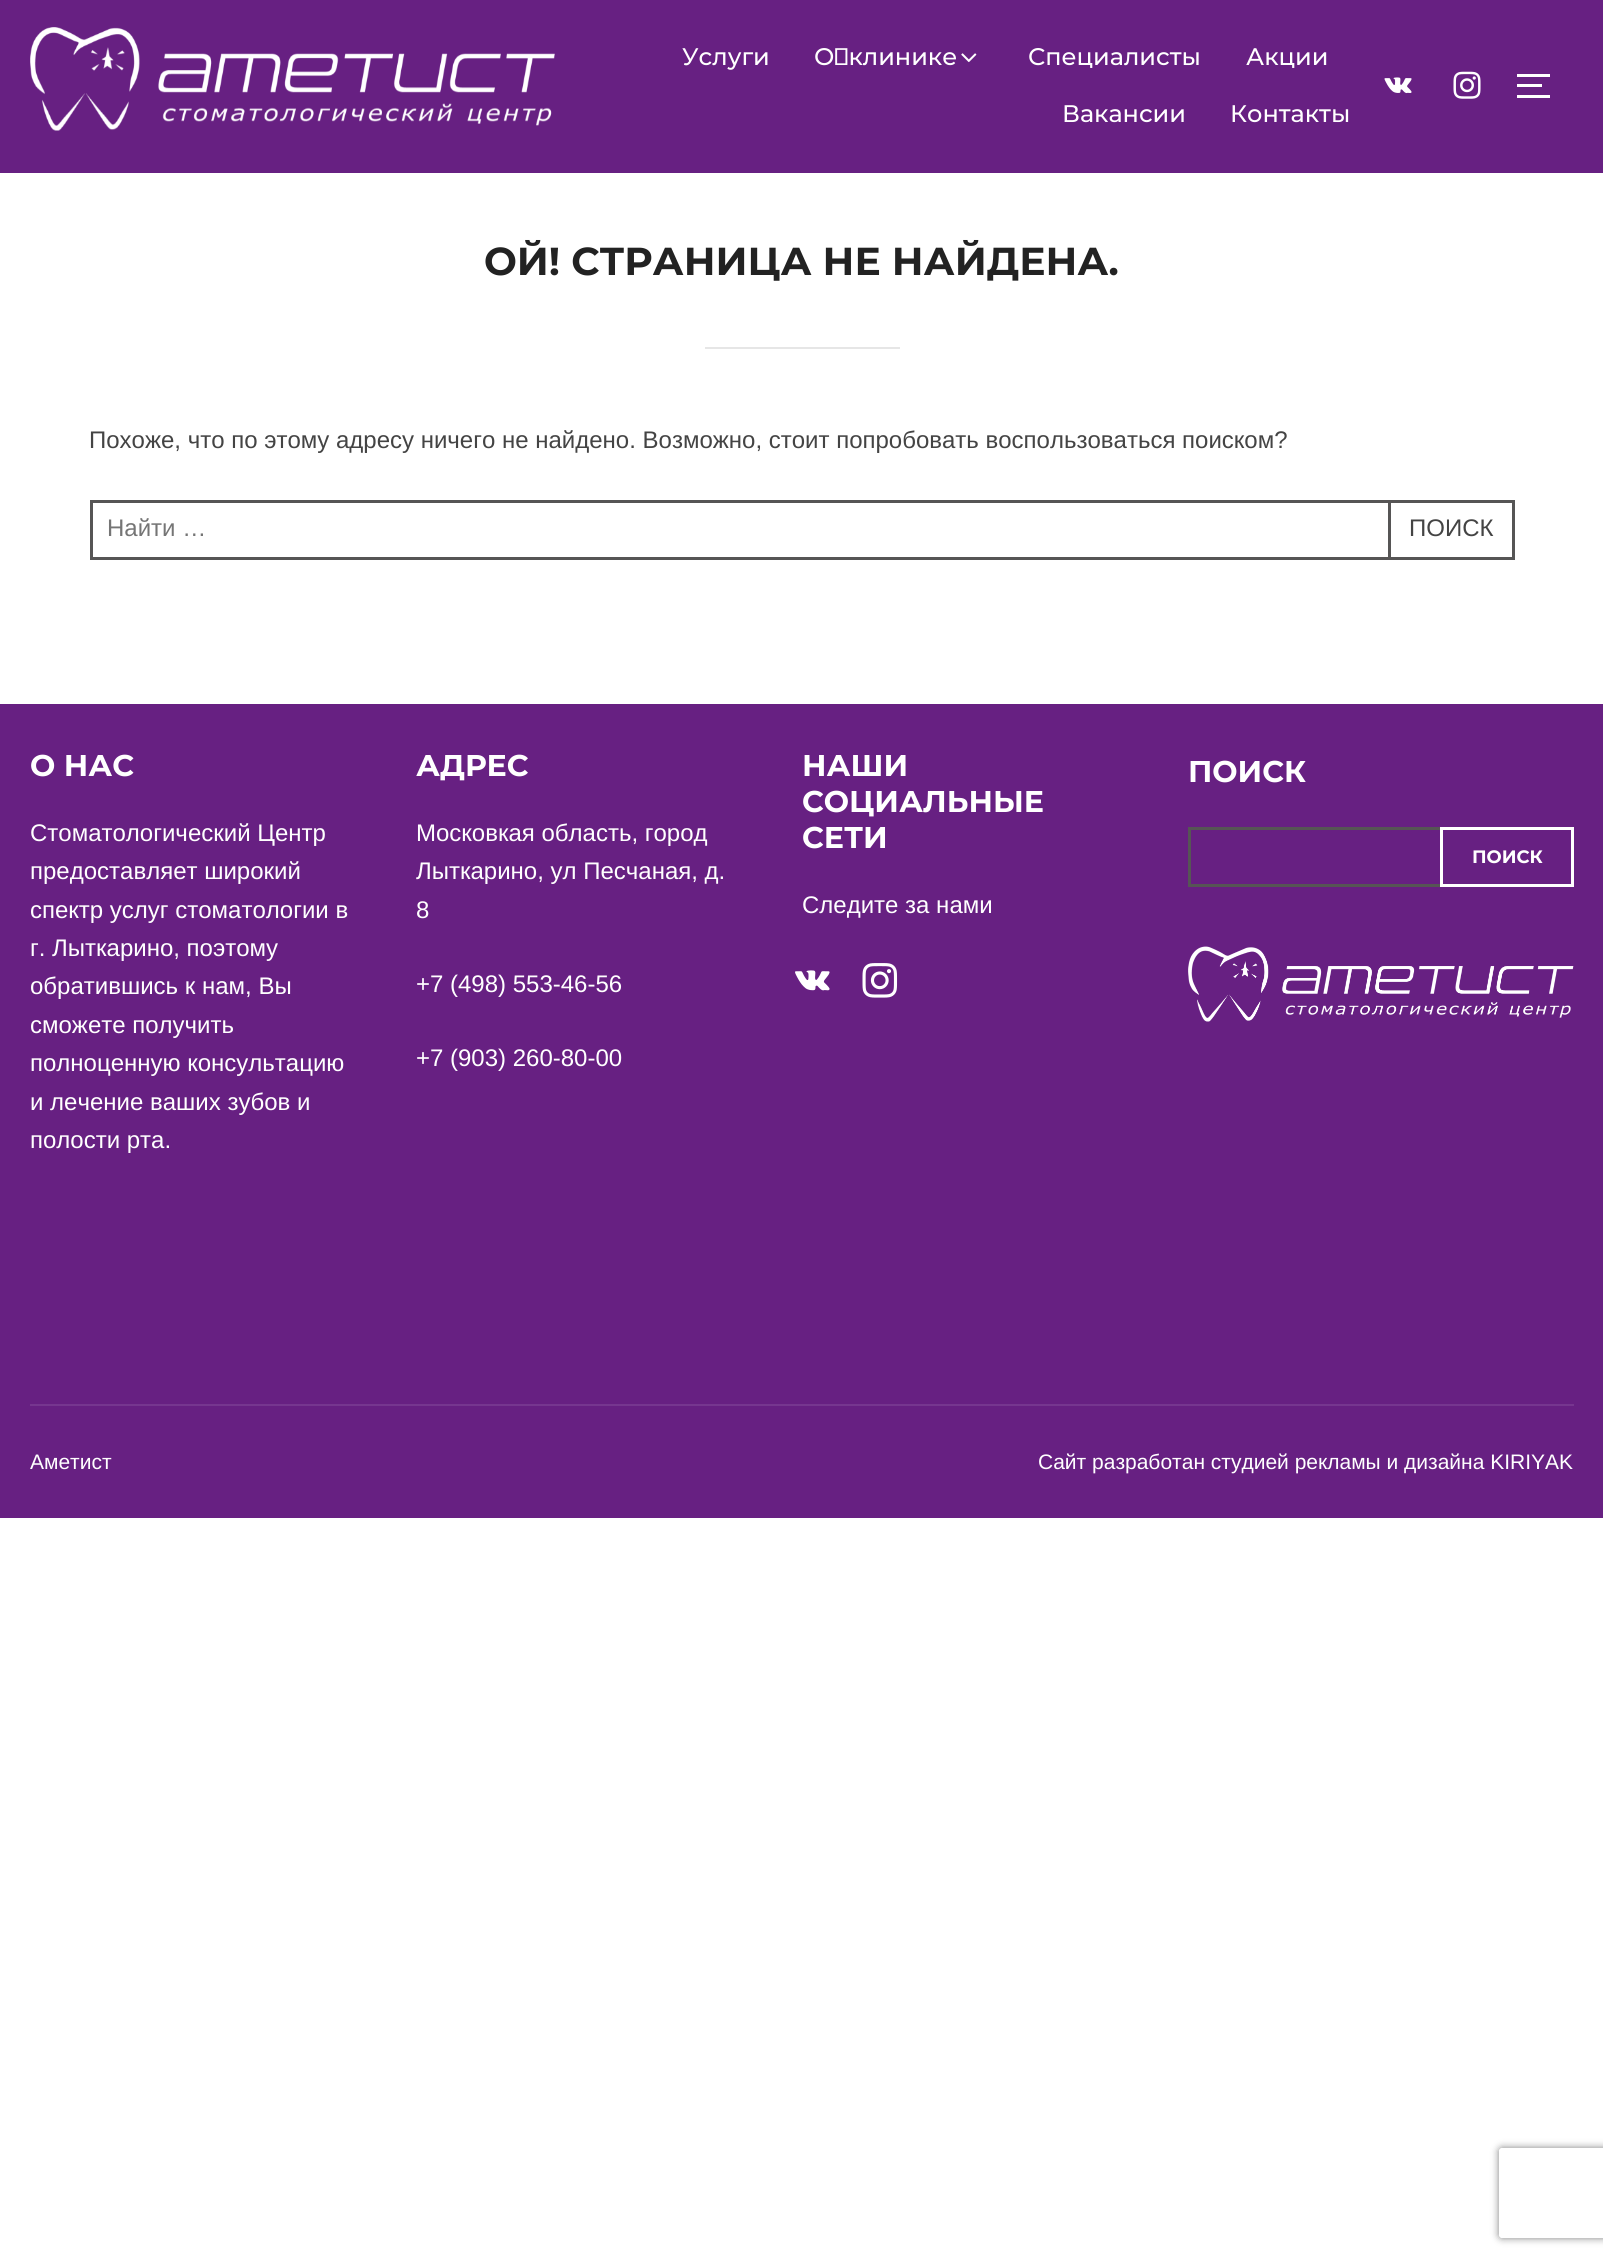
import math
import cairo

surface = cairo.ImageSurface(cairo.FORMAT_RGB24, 1603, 2259)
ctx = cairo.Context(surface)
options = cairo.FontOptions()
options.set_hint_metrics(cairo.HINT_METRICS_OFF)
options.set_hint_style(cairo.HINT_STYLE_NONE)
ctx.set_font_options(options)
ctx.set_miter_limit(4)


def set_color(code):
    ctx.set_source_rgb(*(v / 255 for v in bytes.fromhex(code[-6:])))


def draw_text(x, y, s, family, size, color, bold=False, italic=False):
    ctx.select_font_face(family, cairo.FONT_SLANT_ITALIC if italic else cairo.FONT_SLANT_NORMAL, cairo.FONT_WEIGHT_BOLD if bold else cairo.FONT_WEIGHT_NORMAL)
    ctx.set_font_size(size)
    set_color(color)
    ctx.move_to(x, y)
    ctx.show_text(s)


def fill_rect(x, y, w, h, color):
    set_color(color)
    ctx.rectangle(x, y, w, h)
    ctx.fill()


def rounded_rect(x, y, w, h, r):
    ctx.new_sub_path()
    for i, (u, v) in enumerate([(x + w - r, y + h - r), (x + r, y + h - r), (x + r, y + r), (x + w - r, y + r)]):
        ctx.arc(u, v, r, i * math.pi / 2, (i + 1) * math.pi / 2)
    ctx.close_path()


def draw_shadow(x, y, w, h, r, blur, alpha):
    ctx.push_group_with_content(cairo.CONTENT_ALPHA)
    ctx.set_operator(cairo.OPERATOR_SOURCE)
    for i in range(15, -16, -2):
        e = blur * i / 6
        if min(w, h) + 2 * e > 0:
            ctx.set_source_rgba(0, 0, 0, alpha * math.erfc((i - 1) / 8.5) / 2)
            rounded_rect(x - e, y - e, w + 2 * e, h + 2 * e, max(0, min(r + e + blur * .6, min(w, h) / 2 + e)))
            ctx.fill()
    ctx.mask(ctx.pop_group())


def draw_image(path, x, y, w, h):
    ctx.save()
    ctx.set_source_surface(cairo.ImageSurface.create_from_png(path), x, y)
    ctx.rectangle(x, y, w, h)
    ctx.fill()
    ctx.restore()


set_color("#ffffff")
ctx.paint()
fill_rect(0, 0, 1603, 173, "#672082")
draw_image("assets/img1.png", 30, 27, 525, 104)
draw_text(682, 65, "Услуги", "Montserrat Medium", 24, "#ffffff")
draw_text(814, 65, "О клинике", "Montserrat Medium", 24, "#ffffff")
draw_image("assets/img2.png", 961, 53, 16, 10)
draw_text(1028, 65, "Специалисты", "Montserrat Medium", 24, "#ffffff")
draw_text(1246, 65, "Акции", "Montserrat Medium", 24, "#ffffff")
draw_text(1062, 122, "Вакансии", "Montserrat Medium", 24, "#ffffff")
draw_text(1230, 122, "Контакты", "Montserrat Medium", 24, "#ffffff")
draw_image("assets/img3.png", 1384, 77, 28, 17)
draw_image("assets/img4.png", 1453, 71, 28, 28)
fill_rect(1517, 74, 33, 3, "#ffffff")
fill_rect(1517, 84, 25, 3, "#ffffff")
fill_rect(1517, 95, 33, 3, "#ffffff")
draw_text(484, 275, "ОЙ! СТРАНИЦА НЕ НАЙДЕНА.", "Montserrat", 39, "#222222", bold=True)
fill_rect(705, 347, 195, 2, "#e6e6e6")
draw_text(89, 448, "Похоже, что по этому адресу ничего не найдено. Возможно, стоит попробовать воспользоваться поиском?", "Liberation Sans", 24, "#444444")
ctx.rectangle(91.5, 501.5, 1422, 57)
set_color("#565555")
ctx.set_line_width(3)
ctx.stroke()
draw_text(107, 536, "Найти …", "Liberation Sans", 24, "#757575")
ctx.rectangle(1389.5, 501.5, 124, 57)
set_color("#565555")
ctx.stroke()
draw_text(1409, 536, "ПОИСК", "Liberation Sans", 24, "#444444")
fill_rect(0, 704, 1603, 814, "#672082")
draw_text(30, 776, "О НАС", "Montserrat", 30, "#ffffff", bold=True)
draw_text(30, 841, "Стоматологический Центр", "Liberation Sans", 24, "#ffffff")
draw_text(30, 879, "предоставляет широкий", "Liberation Sans", 24, "#ffffff")
draw_text(30, 918, "спектр услуг стоматологии в", "Liberation Sans", 24, "#ffffff")
draw_text(30, 956, "г. Лыткарино, поэтому", "Liberation Sans", 24, "#ffffff")
draw_text(30, 994, "обратившись к нам, Вы", "Liberation Sans", 24, "#ffffff")
draw_text(30, 1033, "сможете получить", "Liberation Sans", 24, "#ffffff")
draw_text(30, 1071, "полноценную консультацию", "Liberation Sans", 24, "#ffffff")
draw_text(30, 1110, "и лечение ваших зубов и", "Liberation Sans", 24, "#ffffff")
draw_text(30, 1148, "полости рта.", "Liberation Sans", 24, "#ffffff")
draw_text(416, 776, "АДРЕС", "Montserrat", 30, "#ffffff", bold=True)
draw_text(416, 841, "Московкая область, город", "Liberation Sans", 24, "#ffffff")
draw_text(416, 879, "Лыткарино, ул Песчаная, д.", "Liberation Sans", 24, "#ffffff")
draw_text(416, 918, "8", "Liberation Sans", 24, "#ffffff")
draw_text(416, 992, "+7 (498) 553-46-56", "Liberation Sans", 24, "#ffffff")
draw_text(416, 1066, "+7 (903) 260-80-00", "Liberation Sans", 24, "#ffffff")
draw_text(802, 776, "НАШИ", "Montserrat", 30, "#ffffff", bold=True)
draw_text(802, 812, "СОЦИАЛЬНЫЕ", "Montserrat", 30, "#ffffff", bold=True)
draw_text(802, 848, "СЕТИ", "Montserrat", 30, "#ffffff", bold=True)
draw_text(802, 913, "Следите за нами", "Liberation Sans", 24, "#ffffff")
draw_image("assets/img5.png", 795, 970, 35, 21)
draw_image("assets/img6.png", 862, 963, 36, 35)
draw_text(1188, 782, "ПОИСК", "Montserrat", 30, "#ffffff", bold=True)
ctx.rectangle(1189.5, 828.5, 383, 57)
set_color("#565555")
ctx.stroke()
ctx.rectangle(1441.5, 828.5, 131, 57)
set_color("#ffffff")
ctx.stroke()
draw_text(1472, 863, "ПОИСК", "Montserrat", 18, "#ffffff", bold=True)
draw_image("assets/img7.png", 1188, 946, 386, 76)
fill_rect(30, 1404, 1544, 2, "#76368f")
draw_text(30, 1469, "Аметист", "Liberation Sans", 21, "#ffffff")
draw_text(1038, 1469, "Сайт разработан студией рекламы и дизайна KIRIYAK", "Liberation Sans", 21, "#ffffff")
ctx.save()
ctx.set_fill_rule(cairo.FILL_RULE_EVEN_ODD)
ctx.new_path()
ctx.move_to(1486, 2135)
ctx.line_to(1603, 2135)
ctx.line_to(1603, 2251)
ctx.line_to(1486, 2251)
ctx.close_path()
ctx.move_to(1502, 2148)
ctx.line_to(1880, 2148)
ctx.curve_to(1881.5, 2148, 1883, 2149.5, 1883, 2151)
ctx.line_to(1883, 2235)
ctx.curve_to(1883, 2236.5, 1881.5, 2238, 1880, 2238)
ctx.line_to(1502, 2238)
ctx.curve_to(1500.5, 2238, 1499, 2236.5, 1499, 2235)
ctx.line_to(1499, 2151)
ctx.curve_to(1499, 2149.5, 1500.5, 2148, 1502, 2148)
ctx.close_path()
ctx.clip()
set_color("#808080")
draw_shadow(1499, 2148, 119, 90, 3, 4, 1)
ctx.restore()
surface.write_to_png("output.png")
